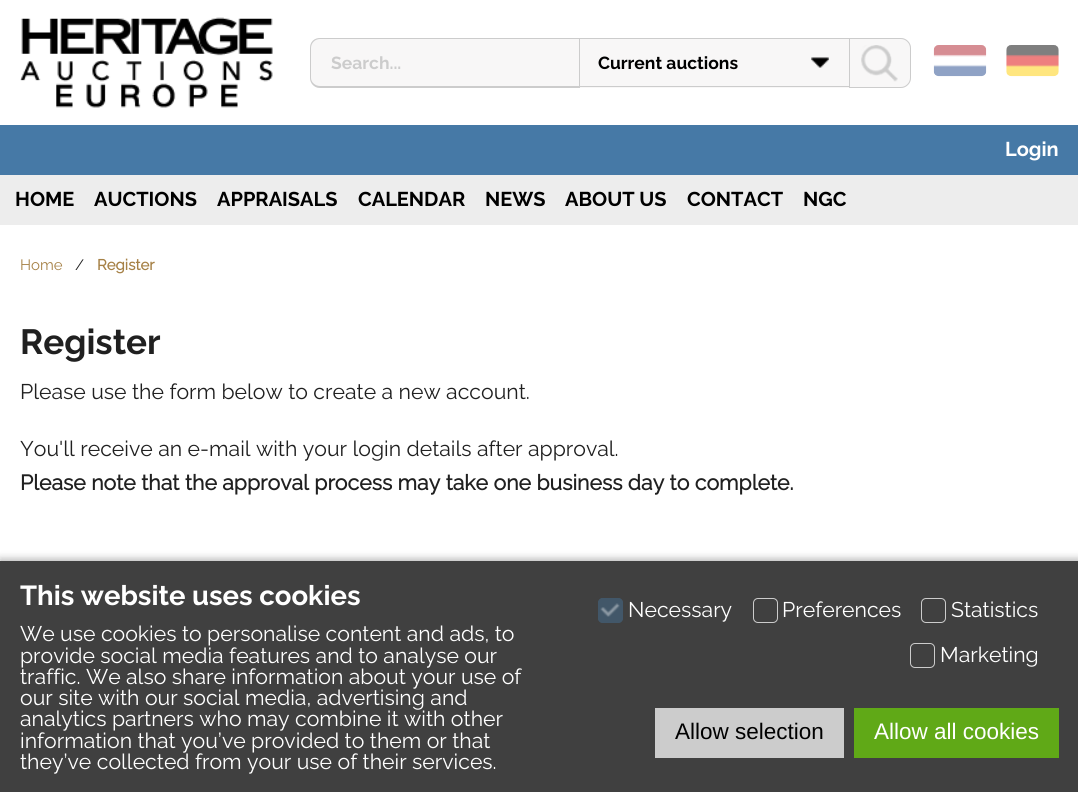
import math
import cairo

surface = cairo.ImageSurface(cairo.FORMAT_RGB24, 1078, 792)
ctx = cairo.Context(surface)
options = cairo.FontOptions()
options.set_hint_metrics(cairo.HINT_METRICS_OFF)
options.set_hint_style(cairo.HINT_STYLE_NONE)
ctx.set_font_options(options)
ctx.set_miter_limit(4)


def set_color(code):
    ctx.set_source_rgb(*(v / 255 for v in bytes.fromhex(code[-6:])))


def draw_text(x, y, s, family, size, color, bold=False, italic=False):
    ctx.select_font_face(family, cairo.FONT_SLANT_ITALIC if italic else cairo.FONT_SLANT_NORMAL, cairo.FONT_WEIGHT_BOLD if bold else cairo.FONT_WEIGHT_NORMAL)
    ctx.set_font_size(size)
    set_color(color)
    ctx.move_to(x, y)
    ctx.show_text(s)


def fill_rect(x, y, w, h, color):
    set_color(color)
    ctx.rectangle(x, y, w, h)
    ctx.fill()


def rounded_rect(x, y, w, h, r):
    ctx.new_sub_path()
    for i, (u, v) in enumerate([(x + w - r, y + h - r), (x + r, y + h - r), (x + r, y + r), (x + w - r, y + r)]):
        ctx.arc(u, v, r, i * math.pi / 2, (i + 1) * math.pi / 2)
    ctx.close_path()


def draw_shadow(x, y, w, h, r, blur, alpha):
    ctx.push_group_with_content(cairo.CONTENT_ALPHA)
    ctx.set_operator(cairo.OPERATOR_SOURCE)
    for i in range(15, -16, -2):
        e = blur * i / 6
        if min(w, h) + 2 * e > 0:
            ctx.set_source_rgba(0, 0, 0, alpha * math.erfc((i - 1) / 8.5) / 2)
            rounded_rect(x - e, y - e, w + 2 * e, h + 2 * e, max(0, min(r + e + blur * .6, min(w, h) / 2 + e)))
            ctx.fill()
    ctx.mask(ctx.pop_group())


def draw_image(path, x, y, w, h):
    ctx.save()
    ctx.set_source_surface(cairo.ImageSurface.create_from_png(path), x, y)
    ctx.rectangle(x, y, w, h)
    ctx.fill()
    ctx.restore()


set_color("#ffffff")
ctx.paint()
draw_image("assets/img1.png", 20, 17, 253, 91)
set_color("#f8f7f7")
ctx.new_path()
ctx.move_to(320, 38)
ctx.line_to(579, 38)
ctx.line_to(579, 88)
ctx.line_to(320, 88)
ctx.curve_to(314.5, 88, 310, 83.5, 310, 78)
ctx.line_to(310, 48)
ctx.curve_to(310, 42.5, 314.5, 38, 320, 38)
ctx.close_path()
ctx.fill()
set_color("#cccccc")
ctx.set_fill_rule(cairo.FILL_RULE_EVEN_ODD)
ctx.new_path()
ctx.move_to(320, 38)
ctx.line_to(579, 38)
ctx.line_to(579, 88)
ctx.line_to(320, 88)
ctx.curve_to(314, 88, 310, 83, 310, 78)
ctx.line_to(310, 48)
ctx.curve_to(310, 42, 314, 38, 320, 38)
ctx.close_path()
ctx.move_to(320, 39)
ctx.line_to(579, 39)
ctx.line_to(579, 86)
ctx.line_to(320, 86)
ctx.curve_to(315, 86, 311, 82, 311, 78)
ctx.line_to(311, 48)
ctx.curve_to(311, 43, 315, 39, 320, 39)
ctx.close_path()
ctx.fill()
draw_text(331, 69, "Search...", "Raleway Thin", 17.5, "#cccccc")
fill_rect(580, 39, 269, 49, "#f8f7f7")
draw_image("assets/img2.png", 811, 57, 18, 11)
fill_rect(579, 38, 270, 1, "#cccccc")
fill_rect(579, 86, 270, 1, "#cccccc")
fill_rect(579, 38, 1, 50, "#cccccc")
draw_text(598, 69, "Current auctions", "Raleway Thin", 17.5, "#000000")
set_color("#f8f7f7")
ctx.new_path()
ctx.move_to(849, 38)
ctx.line_to(901, 38)
ctx.curve_to(906.5, 38, 911, 42.5, 911, 48)
ctx.line_to(911, 78)
ctx.curve_to(911, 83.5, 906.5, 88, 901, 88)
ctx.line_to(849, 88)
ctx.close_path()
ctx.fill()
draw_image("assets/img3.png", 861, 45, 37, 37)
ctx.new_path()
ctx.move_to(849.5, 38.5)
ctx.line_to(901, 38.5)
ctx.curve_to(906, 38.5, 910.5, 43, 910.5, 48)
ctx.line_to(910.5, 78)
ctx.curve_to(910.5, 83, 906, 87.5, 901, 87.5)
ctx.line_to(849.5, 87.5)
ctx.close_path()
set_color("#cccccc")
ctx.set_line_width(1)
ctx.stroke()
draw_image("assets/img4.png", 933, 45, 54, 32)
draw_image("assets/img5.png", 1006, 45, 53, 32)
fill_rect(0, 175, 1078, 50, "#ededed")
fill_rect(0, 125, 1078, 50, "#4679a6")
draw_text(1005, 156, "Login", "Raleway Thin", 20, "#ffffff")
draw_text(15, 206, "HOME", "Raleway Thin", 20, "#000000")
draw_text(94, 206, "AUCTIONS", "Raleway Thin", 20, "#000000")
draw_text(217, 206, "APPRAISALS", "Raleway Thin", 20, "#000000")
draw_text(358, 206, "CALENDAR", "Raleway Thin", 20, "#000000")
draw_text(485, 206, "NEWS", "Raleway Thin", 20, "#000000")
draw_text(565, 206, "ABOUT US", "Raleway Thin", 20, "#000000")
draw_text(687, 206, "CONTACT", "Raleway Thin", 20, "#000000")
draw_text(803, 206, "NGC", "Raleway Thin", 20, "#000000")
draw_text(20, 270, "Home", "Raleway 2 Thin", 15, "#a68146")
draw_text(75, 270, "/", "Raleway 2 Thin", 15, "#202020")
draw_text(97, 270, "Register", "Raleway", 15, "#a68146", bold=True)
draw_text(20, 354, "Register", "Raleway Thin", 35, "#202020")
draw_text(20, 399, "Please use the form below to create a new account.", "Raleway 2 Thin", 21.25, "#202020")
draw_text(20, 456, "You'll receive an e-mail with your login details after approval.", "Raleway 2 Thin", 21.25, "#202020")
draw_text(20, 490, "Please note that the approval process may take one business day to complete.", "Raleway", 21.25, "#202020", bold=True)
set_color("#000000")
draw_shadow(0, 559, 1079, 231, 0, 4, 0.3)
fill_rect(0, 561, 1078, 231, "#404040")
draw_text(20, 605, "This website uses cookies", "Raleway Thin", 27.5, "#ffffff")
draw_text(20, 641, "We use cookies to personalise content and ads, to", "Raleway 2 Thin", 21.25, "#ffffff")
draw_text(20, 663, "provide social media features and to analyse our", "Raleway 2 Thin", 21.25, "#ffffff")
draw_text(20, 684, "traffic. We also share information about your use of", "Raleway 2 Thin", 21.25, "#ffffff")
draw_text(20, 705, "our site with our social media, advertising and", "Raleway 2 Thin", 21.25, "#ffffff")
draw_text(20, 726, "analytics partners who may combine it with other", "Raleway 2 Thin", 21.25, "#ffffff")
draw_text(20, 748, "information that you’ve provided to them or that", "Raleway 2 Thin", 21.25, "#ffffff")
draw_text(20, 769, "they’ve collected from your use of their services.", "Raleway 2 Thin", 21.25, "#ffffff")
set_color("#425769")
rounded_rect(598, 598, 25, 25, 5)
ctx.fill()
draw_image("assets/img6.png", 600, 603, 20, 14)
rounded_rect(598.5, 598.5, 24, 24, 4.5)
ctx.stroke()
draw_text(628, 617, "Necessary", "Raleway 2 Thin", 21.25, "#ffffff")
rounded_rect(753.5, 598.5, 24, 24, 4.5)
set_color("#cccccc")
ctx.stroke()
draw_text(782, 617, "Preferences", "Raleway 2 Thin", 21.25, "#ffffff")
rounded_rect(921.5, 598.5, 24, 24, 4.5)
set_color("#cccccc")
ctx.stroke()
draw_text(951, 617, "Statistics", "Raleway 2 Thin", 21.25, "#ffffff")
rounded_rect(910.5, 643.5, 24, 24, 4.5)
set_color("#cccccc")
ctx.stroke()
draw_text(940, 662, "Marketing", "Raleway 2 Thin", 21.25, "#ffffff")
fill_rect(655, 708, 189, 50, "#cccccc")
draw_text(675, 739, "Allow selection", "Liberation Sans", 22.5, "#000000")
fill_rect(854, 708, 205, 50, "#60a917")
draw_text(874, 739, "Allow all cookies", "Liberation Sans", 22.5, "#ffffff")
surface.write_to_png("output.png")
